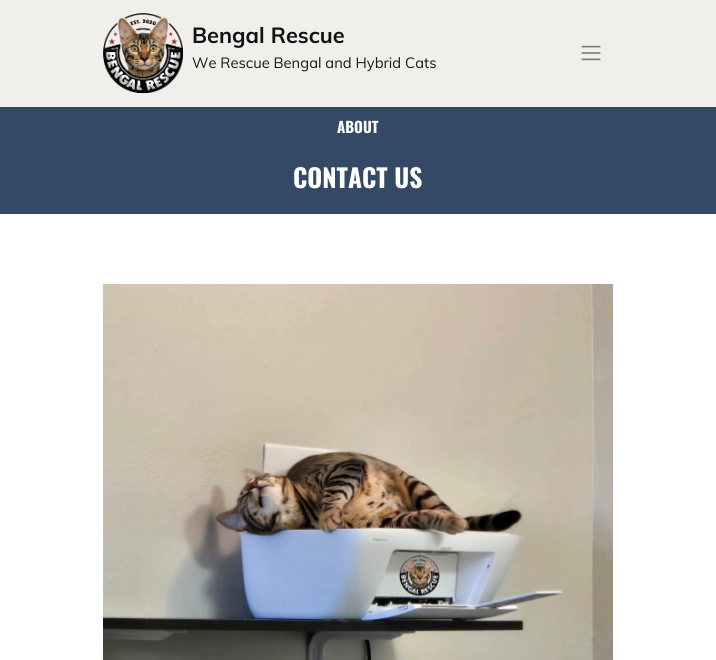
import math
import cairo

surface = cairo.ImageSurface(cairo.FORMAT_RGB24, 716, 660)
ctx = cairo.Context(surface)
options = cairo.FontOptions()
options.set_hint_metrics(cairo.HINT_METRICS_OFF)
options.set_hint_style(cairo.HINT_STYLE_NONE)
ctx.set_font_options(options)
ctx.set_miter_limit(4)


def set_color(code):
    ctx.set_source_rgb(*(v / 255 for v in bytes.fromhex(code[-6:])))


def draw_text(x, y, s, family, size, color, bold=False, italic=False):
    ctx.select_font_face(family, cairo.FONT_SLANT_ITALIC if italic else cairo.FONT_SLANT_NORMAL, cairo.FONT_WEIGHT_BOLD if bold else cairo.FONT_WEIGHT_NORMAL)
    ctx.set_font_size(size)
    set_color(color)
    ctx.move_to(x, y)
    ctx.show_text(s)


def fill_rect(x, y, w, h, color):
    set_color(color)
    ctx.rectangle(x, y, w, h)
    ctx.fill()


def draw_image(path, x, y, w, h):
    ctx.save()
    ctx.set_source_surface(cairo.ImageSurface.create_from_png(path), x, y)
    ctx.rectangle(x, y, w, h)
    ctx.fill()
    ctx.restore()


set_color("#ffffff")
ctx.paint()
fill_rect(0, 0, 716, 107, "#f0efec")
draw_image("assets/img1.png", 103, 13, 80, 80)
draw_text(192, 43, "Bengal Rescue", "Muli", 21.75, "#111111", bold=True)
draw_text(192, 68, "We Rescue Bengal and Hybrid Cats", "Muli", 14.75, "#181818")
draw_image("assets/img2.png", 581, 45, 20, 16)
fill_rect(0, 107, 716, 107, "#344966")
draw_text(337, 133, "ABOUT", "Oswald", 15, "#ffffff", bold=True)
draw_text(293, 188, "CONTACT US", "Oswald", 25.5, "#ffffff", bold=True)
draw_image("assets/img3.png", 103, 284, 510, 376)
surface.write_to_png("output.png")
